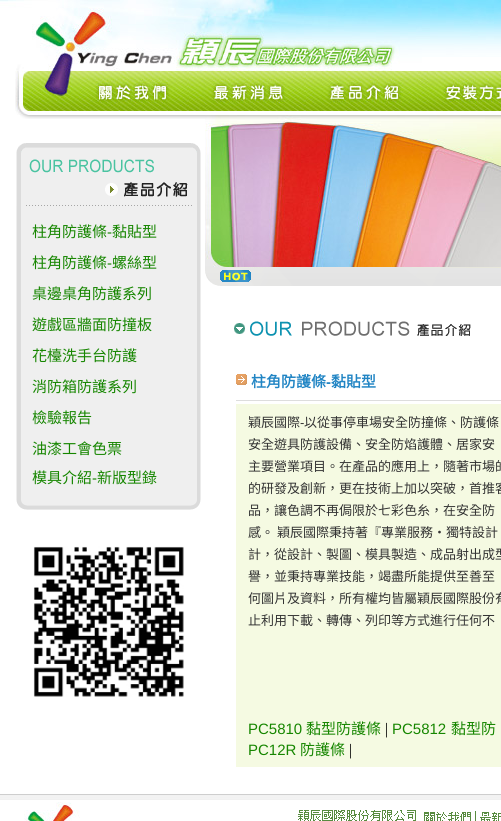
import math
import cairo

surface = cairo.ImageSurface(cairo.FORMAT_RGB24, 501, 821)
ctx = cairo.Context(surface)
options = cairo.FontOptions()
options.set_hint_metrics(cairo.HINT_METRICS_OFF)
options.set_hint_style(cairo.HINT_STYLE_NONE)
ctx.set_font_options(options)
ctx.set_miter_limit(4)


def set_color(code):
    ctx.set_source_rgb(*(v / 255 for v in bytes.fromhex(code[-6:])))


def draw_text(x, y, s, family, size, color, bold=False, italic=False):
    ctx.select_font_face(family, cairo.FONT_SLANT_ITALIC if italic else cairo.FONT_SLANT_NORMAL, cairo.FONT_WEIGHT_BOLD if bold else cairo.FONT_WEIGHT_NORMAL)
    ctx.set_font_size(size)
    set_color(color)
    ctx.move_to(x, y)
    ctx.show_text(s)


def fill_rect(x, y, w, h, color):
    set_color(color)
    ctx.rectangle(x, y, w, h)
    ctx.fill()


def draw_image(path, x, y, w, h):
    ctx.save()
    ctx.set_source_surface(cairo.ImageSurface.create_from_png(path), x, y)
    ctx.rectangle(x, y, w, h)
    ctx.fill()
    ctx.restore()


set_color("#ffffff")
ctx.paint()
draw_image("assets/img1.png", 0, 0, 422, 71)
draw_image("assets/img2.png", 422, 0, 79, 57)
draw_image("assets/img3.png", 15, 71, 65, 44)
draw_image("assets/img4.png", 80, 71, 109, 40)
draw_image("assets/img5.png", 189, 71, 117, 40)
draw_image("assets/img6.png", 306, 71, 114, 40)
draw_image("assets/img7.png", 420, 71, 81, 40)
draw_image("assets/img8.png", 20, 115, 185, 4)
draw_image("assets/img9.png", 16, 206, 185, 285)
draw_image("assets/img10.png", 16, 143, 185, 63)
draw_text(32, 237, "柱角防護條", "Noto Sans CJK TC", 15, "#168600")
draw_text(107, 237, "-", "Liberation Sans", 15, "#168600")
draw_text(112, 237, "黏貼型", "Noto Sans CJK TC", 15, "#168600")
draw_text(32, 268, "柱角防護條", "Noto Sans CJK TC", 15, "#168600")
draw_text(107, 268, "-", "Liberation Sans", 15, "#168600")
draw_text(112, 268, "螺絲型", "Noto Sans CJK TC", 15, "#168600")
draw_text(32, 299, "桌邊桌角防護系列", "Noto Sans CJK TC", 15, "#168600")
draw_text(32, 330, "遊戲區牆面防撞板", "Noto Sans CJK TC", 15, "#168600")
draw_text(32, 361, "花檯洗手台防護", "Noto Sans CJK TC", 15, "#168600")
draw_text(32, 392, "消防箱防護系列", "Noto Sans CJK TC", 15, "#168600")
draw_text(32, 423, "檢驗報告", "Noto Sans CJK TC", 15, "#168600")
draw_text(32, 454, "油漆工會色票", "Noto Sans CJK TC", 15, "#168600")
draw_text(32, 483, "模具介紹", "Noto Sans CJK TC", 15, "#168600")
draw_text(92, 483, "-", "Liberation Sans", 15, "#168600")
draw_text(97, 483, "新版型錄", "Noto Sans CJK TC", 15, "#168600")
draw_image("assets/img11.png", 16, 491, 185, 19)
draw_image("assets/img12.png", 33, 546, 151, 151)
draw_image("assets/img13.png", 205, 115, 296, 152)
draw_image("assets/img14.png", 205, 267, 49, 19)
draw_image("assets/img15.png", 254, 267, 247, 19)
draw_image("assets/img16.png", 234, 321, 237, 15)
draw_image("assets/img17.png", 236, 374, 11, 11)
draw_text(251, 387, "柱角防護條", "Noto Sans CJK TC", 15, "#2185c4", bold=True)
draw_text(326, 387, "-", "Liberation Sans", 15, "#2185c4", bold=True)
draw_text(331, 387, "黏貼型", "Noto Sans CJK TC", 15, "#2185c4", bold=True)
fill_rect(236, 400, 265, 1, "#dddddd")
fill_rect(236, 404, 265, 363, "#f5fae2")
draw_text(248, 427, "穎辰國際", "Noto Sans CJK TC", 13, "#333333")
draw_text(300, 427, "-", "Liberation Sans", 13, "#333333")
draw_text(304, 427, "以從事停車場安全防撞條、防護條", "Noto Sans CJK TC", 13, "#333333")
draw_text(248, 449, "安全遊具防護設備、安全防焰護體、居家安", "Noto Sans CJK TC", 13, "#333333")
draw_text(248, 471, "主要營業項目。在產品的應用上，隨著市場的", "Noto Sans CJK TC", 13, "#333333")
draw_text(248, 493, "的研發及創新，更在技術上加以突破，首推客", "Noto Sans CJK TC", 13, "#333333")
draw_text(248, 515, "品，讓色調不再侷限於七彩色糸，在安全防", "Noto Sans CJK TC", 13, "#333333")
draw_text(248, 537, "感。", "Noto Sans CJK TC", 13, "#333333")
draw_text(277, 537, "穎辰國際秉持著『專業服務‧獨特設計", "Noto Sans CJK TC", 13, "#333333")
draw_text(248, 559, "計，從設計、製圖、模具製造、成品射出成型", "Noto Sans CJK TC", 13, "#333333")
draw_text(248, 581, "譽，並秉持專業技能，竭盡所能提供至善至", "Noto Sans CJK TC", 13, "#333333")
draw_text(248, 603, "何圖片及資料，所有權均皆屬穎辰國際股份有", "Noto Sans CJK TC", 13, "#333333")
draw_text(248, 625, "止利用下載、轉傳、列印等方式進行任何不", "Noto Sans CJK TC", 13, "#333333")
draw_text(248, 734, "PC5810", "Liberation Sans", 15, "#168600")
draw_text(306, 734, "黏型防護條", "Noto Sans CJK TC", 15, "#168600")
draw_text(385, 734, "|", "Liberation Serif", 16, "#000000")
draw_text(392, 734, "PC5812", "Liberation Sans", 15, "#168600")
draw_text(451, 734, "黏型防", "Noto Sans CJK TC", 15, "#168600")
draw_text(248, 755, "PC12R", "Liberation Sans", 15, "#168600")
draw_text(300, 755, "防護條", "Noto Sans CJK TC", 15, "#168600")
draw_text(349, 755, "|", "Liberation Serif", 16, "#000000")
draw_image("assets/img18.png", 0, 794, 501, 27)
draw_image("assets/img19.png", 298, 810, 118, 11)
draw_image("assets/img20.png", 424, 811, 52, 10)
draw_image("assets/img21.png", 480, 812, 21, 9)
surface.write_to_png("output.png")
